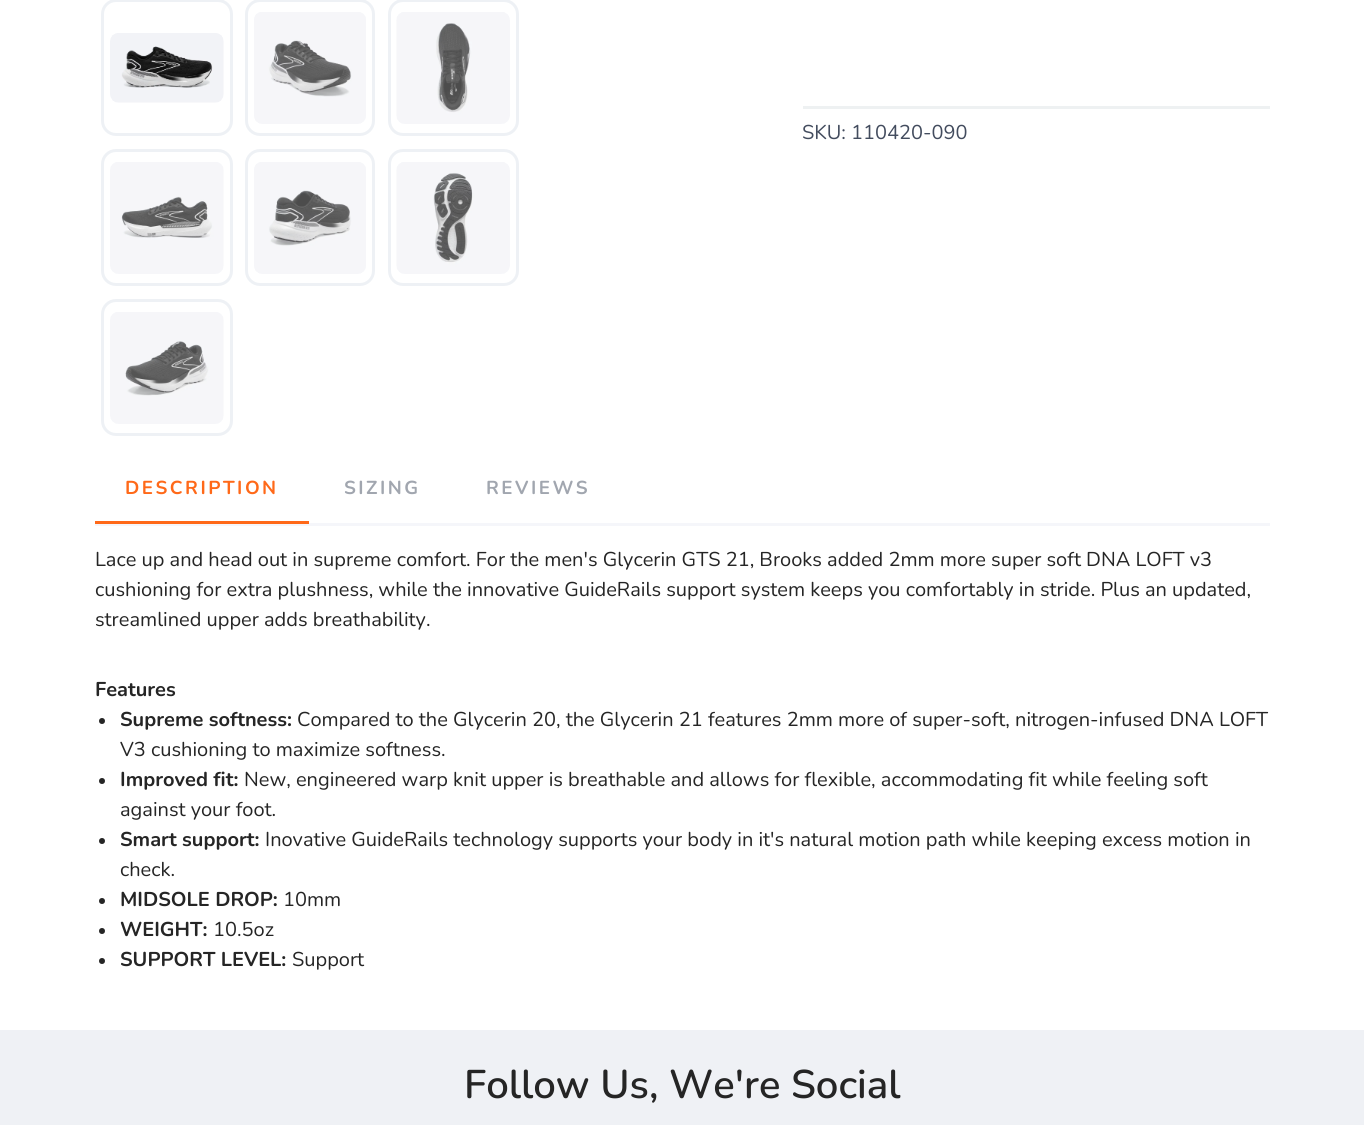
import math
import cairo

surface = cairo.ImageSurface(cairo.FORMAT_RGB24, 1364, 1125)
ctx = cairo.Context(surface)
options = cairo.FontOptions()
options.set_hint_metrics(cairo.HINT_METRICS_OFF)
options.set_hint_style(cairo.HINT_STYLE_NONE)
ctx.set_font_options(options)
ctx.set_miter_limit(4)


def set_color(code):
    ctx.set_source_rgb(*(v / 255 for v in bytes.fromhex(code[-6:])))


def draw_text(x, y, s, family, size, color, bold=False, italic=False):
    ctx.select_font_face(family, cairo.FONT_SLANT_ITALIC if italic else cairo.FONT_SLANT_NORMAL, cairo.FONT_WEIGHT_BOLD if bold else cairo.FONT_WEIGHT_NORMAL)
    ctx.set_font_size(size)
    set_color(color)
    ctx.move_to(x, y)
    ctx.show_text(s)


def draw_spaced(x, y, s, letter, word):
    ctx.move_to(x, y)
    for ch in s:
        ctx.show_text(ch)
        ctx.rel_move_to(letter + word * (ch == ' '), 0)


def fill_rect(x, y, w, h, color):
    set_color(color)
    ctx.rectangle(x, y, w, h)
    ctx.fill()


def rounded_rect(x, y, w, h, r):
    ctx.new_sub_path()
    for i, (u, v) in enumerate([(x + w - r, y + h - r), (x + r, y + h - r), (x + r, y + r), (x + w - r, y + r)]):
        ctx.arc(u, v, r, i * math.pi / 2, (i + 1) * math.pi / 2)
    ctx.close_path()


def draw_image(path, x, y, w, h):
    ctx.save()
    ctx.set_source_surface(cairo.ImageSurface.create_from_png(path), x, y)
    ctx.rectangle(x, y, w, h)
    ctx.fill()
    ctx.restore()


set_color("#ffffff")
ctx.paint()
rounded_rect(102.5, 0.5, 129, 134, 13.5)
set_color("#eef1f5")
ctx.set_line_width(3)
ctx.stroke()
draw_image("assets/img1.png", 110, 33, 114, 70)
rounded_rect(246.5, 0.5, 127, 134, 13.5)
ctx.stroke()
draw_image("assets/img2.png", 254, 12, 112, 112)
rounded_rect(389.5, 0.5, 128, 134, 13.5)
ctx.stroke()
draw_image("assets/img3.png", 396, 12, 114, 112)
rounded_rect(102.5, 150.5, 129, 134, 13.5)
ctx.stroke()
draw_image("assets/img4.png", 110, 162, 114, 112)
rounded_rect(246.5, 150.5, 127, 134, 13.5)
ctx.stroke()
draw_image("assets/img5.png", 254, 162, 112, 112)
rounded_rect(389.5, 150.5, 128, 134, 13.5)
ctx.stroke()
draw_image("assets/img6.png", 396, 162, 114, 112)
rounded_rect(102.5, 300.5, 129, 134, 13.5)
ctx.stroke()
draw_image("assets/img7.png", 110, 312, 114, 112)
fill_rect(803, 106, 467, 3, "#eef1f2")
draw_text(802, 139, "SKU: 110420-090", "Nunito", 20, "#434c5e")
fill_rect(95, 523, 1175, 3, "#f5f6fa")
ctx.select_font_face("Nunito", cairo.FONT_SLANT_NORMAL, cairo.FONT_WEIGHT_BOLD)
ctx.set_font_size(18.75)
set_color("#ff6919")
draw_spaced(125, 494, "DESCRIPTION", 2.5, 0)
fill_rect(95, 521, 214, 3, "#ff6919")
set_color("#a1a6af")
draw_spaced(344, 494, "SIZING", 2.5, 0)
draw_spaced(486, 494, "REVIEWS", 2.5, 0)
draw_text(95, 566, "Lace up and head out in supreme comfort. For the men's Glycerin GTS 21, Brooks added 2mm more super soft DNA LOFT v3", "Nunito", 20, "#252525")
draw_text(95, 596, "cushioning for extra plushness, while the innovative GuideRails support system keeps you comfortably in stride. Plus an updated,", "Nunito", 20, "#252525")
draw_text(95, 626, "streamlined upper adds breathability.", "Nunito", 20, "#252525")
draw_text(95, 696, "Features", "Nunito", 20, "#252525", bold=True)
ctx.new_path()
ctx.arc(102, 721, 3, 0, 2 * math.pi)
ctx.fill()
draw_text(120, 726, "Supreme softness:", "Nunito", 20, "#252525", bold=True)
draw_text(297, 726, "Compared to the Glycerin 20, the Glycerin 21 features 2mm more of super-soft, nitrogen-infused DNA LOFT", "Nunito", 20, "#252525")
draw_text(120, 756, "V3 cushioning to maximize softness.", "Nunito", 20, "#252525")
ctx.new_path()
ctx.arc(102, 781, 3, 0, 2 * math.pi)
ctx.fill()
draw_text(120, 786, "Improved fit:", "Nunito", 20, "#252525", bold=True)
draw_text(244, 786, "New, engineered warp knit upper is breathable and allows for flexible, accommodating fit while feeling soft", "Nunito", 20, "#252525")
draw_text(120, 816, "against your foot.", "Nunito", 20, "#252525")
ctx.new_path()
ctx.arc(102, 841, 3, 0, 2 * math.pi)
ctx.fill()
draw_text(120, 846, "Smart support:", "Nunito", 20, "#252525", bold=True)
draw_text(265, 846, "Inovative GuideRails technology supports your body in it's natural motion path while keeping excess motion in", "Nunito", 20, "#252525")
draw_text(120, 876, "check.", "Nunito", 20, "#252525")
ctx.new_path()
ctx.arc(102, 901, 3, 0, 2 * math.pi)
ctx.fill()
draw_text(120, 906, "MIDSOLE DROP:", "Nunito", 20, "#252525", bold=True)
draw_text(283, 906, "10mm", "Nunito", 20, "#252525")
ctx.new_path()
ctx.arc(102, 931, 3, 0, 2 * math.pi)
ctx.fill()
draw_text(120, 936, "WEIGHT:", "Nunito", 20, "#252525", bold=True)
draw_text(213, 936, "10.5oz", "Nunito", 20, "#252525")
ctx.new_path()
ctx.arc(102, 961, 3, 0, 2 * math.pi)
ctx.fill()
draw_text(120, 966, "SUPPORT LEVEL:", "Nunito", 20, "#252525", bold=True)
draw_text(292, 966, "Support", "Nunito", 20, "#252525")
fill_rect(0, 1030, 1364, 95, "#eff1f5")
draw_text(464, 1098, "Follow Us, We're Social", "Nunito SemiBold", 40, "#252525")
surface.write_to_png("output.png")
